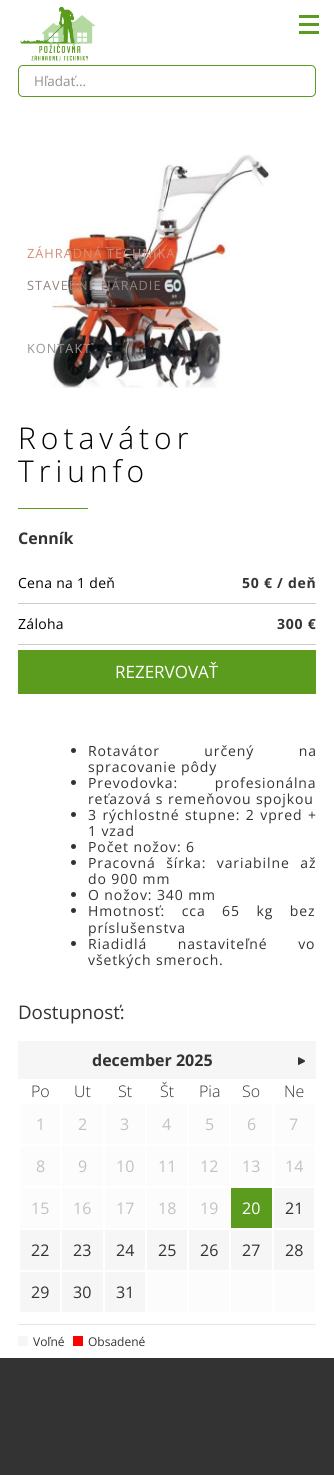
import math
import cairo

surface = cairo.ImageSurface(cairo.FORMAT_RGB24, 334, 1475)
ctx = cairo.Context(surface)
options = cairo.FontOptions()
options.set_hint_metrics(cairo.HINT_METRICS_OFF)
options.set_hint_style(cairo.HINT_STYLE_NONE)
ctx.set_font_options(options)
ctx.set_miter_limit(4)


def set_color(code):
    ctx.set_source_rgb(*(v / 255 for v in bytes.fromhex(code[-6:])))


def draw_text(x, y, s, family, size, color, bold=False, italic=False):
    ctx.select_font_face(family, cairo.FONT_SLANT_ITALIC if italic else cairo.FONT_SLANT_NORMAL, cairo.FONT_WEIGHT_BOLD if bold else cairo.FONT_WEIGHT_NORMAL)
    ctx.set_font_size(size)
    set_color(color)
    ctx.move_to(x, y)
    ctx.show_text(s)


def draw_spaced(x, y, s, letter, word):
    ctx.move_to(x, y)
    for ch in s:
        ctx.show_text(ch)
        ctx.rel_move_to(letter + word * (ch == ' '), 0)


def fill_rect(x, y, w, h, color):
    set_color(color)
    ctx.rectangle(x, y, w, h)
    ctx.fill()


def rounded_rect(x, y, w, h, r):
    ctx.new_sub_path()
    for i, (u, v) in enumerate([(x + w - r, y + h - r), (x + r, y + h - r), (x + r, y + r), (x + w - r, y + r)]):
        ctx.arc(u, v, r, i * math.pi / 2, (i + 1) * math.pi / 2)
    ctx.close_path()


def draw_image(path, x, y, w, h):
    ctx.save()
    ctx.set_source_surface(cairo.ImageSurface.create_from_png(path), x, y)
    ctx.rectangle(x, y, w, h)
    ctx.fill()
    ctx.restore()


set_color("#ffffff")
ctx.paint()
fill_rect(299, 15, 20, 3, "#5b9c1f")
fill_rect(299, 23, 20, 3, "#5b9c1f")
fill_rect(299, 31, 20, 3, "#5b9c1f")
draw_image("assets/img1.png", 20, 6, 76, 55)
rounded_rect(18.5, 65.5, 297, 31, 4.5)
ctx.set_line_width(1)
ctx.stroke()
draw_text(34, 86, "Hľadať...", "Open Sans", 13.5, "#919191")
draw_image("assets/img2.png", 50, 154, 220, 234)
ctx.set_font_size(12.75)
set_color("#d28d7a")
draw_spaced(27, 258, "ZÁHRADNÁ TECHNIKA", 1, 0)
set_color("#93837f")
draw_spaced(27, 290, "STAVEBNÉ NÁRADIE", 1, 0)
set_color("#9b9492")
draw_spaced(27, 353, "KONTAKT", 1, 0)
ctx.select_font_face("Open Sans Light")
ctx.set_font_size(30)
set_color("#000000")
draw_spaced(18, 449, "Rotavátor", 5, 0)
draw_spaced(18, 482, "Triunfo", 5, 0)
fill_rect(18, 508, 70, 1, "#5b9c1f")
draw_text(18, 544, "Cenník", "Open Sans", 16, "#333333", bold=True)
fill_rect(18, 603, 298, 1, "#cccccc")
ctx.select_font_face("Open Sans")
ctx.set_font_size(14)
set_color("#000000")
draw_spaced(18, 588, "Cena na 1 deň", 0.3, 0)
ctx.select_font_face("Open Sans", cairo.FONT_SLANT_NORMAL, cairo.FONT_WEIGHT_BOLD)
set_color("#333333")
draw_spaced(242, 588, "50 € / deň", 0.75, 0)
fill_rect(18, 644, 298, 1, "#cccccc")
ctx.select_font_face("Open Sans")
set_color("#000000")
draw_spaced(18, 629, "Záloha", 0.3, 0)
ctx.select_font_face("Open Sans", cairo.FONT_SLANT_NORMAL, cairo.FONT_WEIGHT_BOLD)
set_color("#333333")
draw_spaced(277, 629, "300 €", 0.75, 0)
fill_rect(18, 650, 298, 44, "#5b9c1f")
draw_text(115, 678, "REZERVOVAŤ", "Open Sans", 17, "#ffffff")
set_color("#333333")
ctx.new_path()
ctx.arc(73.5, 750.5, 2.5, 0, 2 * math.pi)
ctx.fill()
ctx.set_font_size(14)
draw_spaced(88, 756, "Rotavátor určený na", 0.9, 40)
draw_spaced(88, 772, "spracovanie pôdy", 0.9, 0)
ctx.new_path()
ctx.arc(73.5, 782.5, 2.5, 0, 2 * math.pi)
ctx.fill()
draw_spaced(88, 788, "Prevodovka: profesionálna", 0.9, 32)
draw_spaced(88, 804, "reťazová s remeňovou spojkou", 0.9, 0)
ctx.new_path()
ctx.arc(73.5, 814.5, 2.5, 0, 2 * math.pi)
ctx.fill()
draw_spaced(88, 820, "3 rýchlostné stupne: 2 vpred +", 0.9, 1)
draw_spaced(88, 836, "1 vzad", 0.9, 0)
ctx.new_path()
ctx.arc(73.5, 846.5, 2.5, 0, 2 * math.pi)
ctx.fill()
draw_spaced(88, 852, "Počet nožov: 6", 0.9, 0)
ctx.new_path()
ctx.arc(73.5, 862.5, 2.5, 0, 2 * math.pi)
ctx.fill()
draw_spaced(88, 868, "Pracovná šírka: variabilne až", 0.9, 6)
draw_spaced(88, 884, "do 900 mm", 0.9, 0)
ctx.new_path()
ctx.arc(73.5, 894.5, 2.5, 0, 2 * math.pi)
ctx.fill()
draw_spaced(88, 900, "O nožov: 340 mm", 0.9, 0)
ctx.new_path()
ctx.arc(73.5, 910.5, 2.5, 0, 2 * math.pi)
ctx.fill()
draw_spaced(88, 916, "Hmotnosť: cca 65 kg bez", 0.9, 12)
draw_spaced(88, 933, "príslušenstva", 0.9, 0)
ctx.new_path()
ctx.arc(73.5, 943.5, 2.5, 0, 2 * math.pi)
ctx.fill()
draw_spaced(88, 949, "Riadidlá nastaviteľné vo", 0.9, 26)
draw_spaced(88, 965, "všetkých smeroch.", 0.9, 0)
draw_text(18, 1019, "Dostupnosť:", "Open Sans", 18.75, "#333333")
fill_rect(18, 1041, 298, 38, "#f6f6f6")
draw_text(92, 1066, "december 2025", "Open Sans", 16, "#333333", bold=True)
draw_image("assets/img3.png", 298, 1057, 7, 8)
draw_text(31, 1097, "Po", "Open Sans Light", 16, "#333333")
draw_text(74, 1097, "Ut", "Open Sans Light", 16, "#333333")
draw_text(118, 1097, "St", "Open Sans Light", 16, "#333333")
draw_text(160, 1097, "Št", "Open Sans Light", 16, "#333333")
draw_text(199, 1097, "Pia", "Open Sans Light", 16, "#333333")
draw_text(242, 1097, "So", "Open Sans Light", 16, "#333333")
draw_text(284, 1097, "Ne", "Open Sans Light", 16, "#333333")
fill_rect(20, 1104, 40, 40, "#fcfcfc")
draw_text(36, 1130, "1", "Open Sans", 16, "#c2c2c2")
fill_rect(62, 1104, 41, 40, "#fcfcfc")
draw_text(78, 1130, "2", "Open Sans", 16, "#c2c2c2")
fill_rect(105, 1104, 40, 40, "#fcfcfc")
draw_text(120, 1130, "3", "Open Sans", 16, "#c2c2c2")
fill_rect(147, 1104, 40, 40, "#fcfcfc")
draw_text(162, 1130, "4", "Open Sans", 16, "#c2c2c2")
fill_rect(189, 1104, 40, 40, "#fcfcfc")
draw_text(205, 1130, "5", "Open Sans", 16, "#c2c2c2")
fill_rect(231, 1104, 41, 40, "#fcfcfc")
draw_text(247, 1130, "6", "Open Sans", 16, "#c2c2c2")
fill_rect(274, 1104, 40, 40, "#fcfcfc")
draw_text(289, 1130, "7", "Open Sans", 16, "#c2c2c2")
fill_rect(20, 1146, 40, 40, "#fcfcfc")
draw_text(36, 1172, "8", "Open Sans", 16, "#c2c2c2")
fill_rect(62, 1146, 41, 40, "#fcfcfc")
draw_text(78, 1172, "9", "Open Sans", 16, "#c2c2c2")
fill_rect(105, 1146, 40, 40, "#fcfcfc")
draw_text(116, 1172, "10", "Open Sans", 16, "#c2c2c2")
fill_rect(147, 1146, 40, 40, "#fcfcfc")
draw_text(158, 1172, "11", "Open Sans", 16, "#c2c2c2")
fill_rect(189, 1146, 40, 40, "#fcfcfc")
draw_text(200, 1172, "12", "Open Sans", 16, "#c2c2c2")
fill_rect(231, 1146, 41, 40, "#fcfcfc")
draw_text(242, 1172, "13", "Open Sans", 16, "#c2c2c2")
fill_rect(274, 1146, 40, 40, "#fcfcfc")
draw_text(285, 1172, "14", "Open Sans", 16, "#c2c2c2")
fill_rect(20, 1188, 40, 40, "#fcfcfc")
draw_text(31, 1214, "15", "Open Sans", 16, "#c2c2c2")
fill_rect(62, 1188, 41, 40, "#fcfcfc")
draw_text(73, 1214, "16", "Open Sans", 16, "#c2c2c2")
fill_rect(105, 1188, 40, 40, "#fcfcfc")
draw_text(116, 1214, "17", "Open Sans", 16, "#c2c2c2")
fill_rect(147, 1188, 40, 40, "#fcfcfc")
draw_text(158, 1214, "18", "Open Sans", 16, "#c2c2c2")
fill_rect(189, 1188, 40, 40, "#fcfcfc")
draw_text(200, 1214, "19", "Open Sans", 16, "#c2c2c2")
fill_rect(231, 1188, 41, 40, "#5b9c1f")
draw_text(242, 1214, "20", "Open Sans", 16, "#ffffff")
fill_rect(274, 1188, 40, 40, "#f6f6f6")
draw_text(285, 1214, "21", "Open Sans", 16, "#333333")
fill_rect(20, 1230, 40, 40, "#f6f6f6")
draw_text(31, 1256, "22", "Open Sans", 16, "#333333")
fill_rect(62, 1230, 41, 40, "#f6f6f6")
draw_text(73, 1256, "23", "Open Sans", 16, "#333333")
fill_rect(105, 1230, 40, 40, "#f6f6f6")
draw_text(116, 1256, "24", "Open Sans", 16, "#333333")
fill_rect(147, 1230, 40, 40, "#f6f6f6")
draw_text(158, 1256, "25", "Open Sans", 16, "#333333")
fill_rect(189, 1230, 40, 40, "#f6f6f6")
draw_text(200, 1256, "26", "Open Sans", 16, "#333333")
fill_rect(231, 1230, 41, 40, "#f6f6f6")
draw_text(242, 1256, "27", "Open Sans", 16, "#333333")
fill_rect(274, 1230, 40, 40, "#f6f6f6")
draw_text(285, 1256, "28", "Open Sans", 16, "#333333")
fill_rect(20, 1272, 40, 40, "#f6f6f6")
draw_text(31, 1298, "29", "Open Sans", 16, "#333333")
fill_rect(62, 1272, 41, 40, "#f6f6f6")
draw_text(73, 1298, "30", "Open Sans", 16, "#333333")
fill_rect(105, 1272, 40, 40, "#f6f6f6")
draw_text(116, 1298, "31", "Open Sans", 16, "#333333")
fill_rect(147, 1272, 40, 40, "#fcfcfc")
fill_rect(189, 1272, 40, 40, "#fcfcfc")
fill_rect(231, 1272, 41, 40, "#fcfcfc")
fill_rect(274, 1272, 40, 40, "#fcfcfc")
fill_rect(18, 1324, 298, 1, "#e6e6e6")
fill_rect(18, 1336, 10, 10, "#f6f6f6")
draw_text(33, 1346, "Voľné", "Open Sans", 12, "#333333")
fill_rect(73, 1336, 10, 10, "#ff0000")
draw_text(88, 1346, "Obsadené", "Open Sans", 12, "#333333")
fill_rect(0, 1358, 334, 117, "#333333")
surface.write_to_png("output.png")
